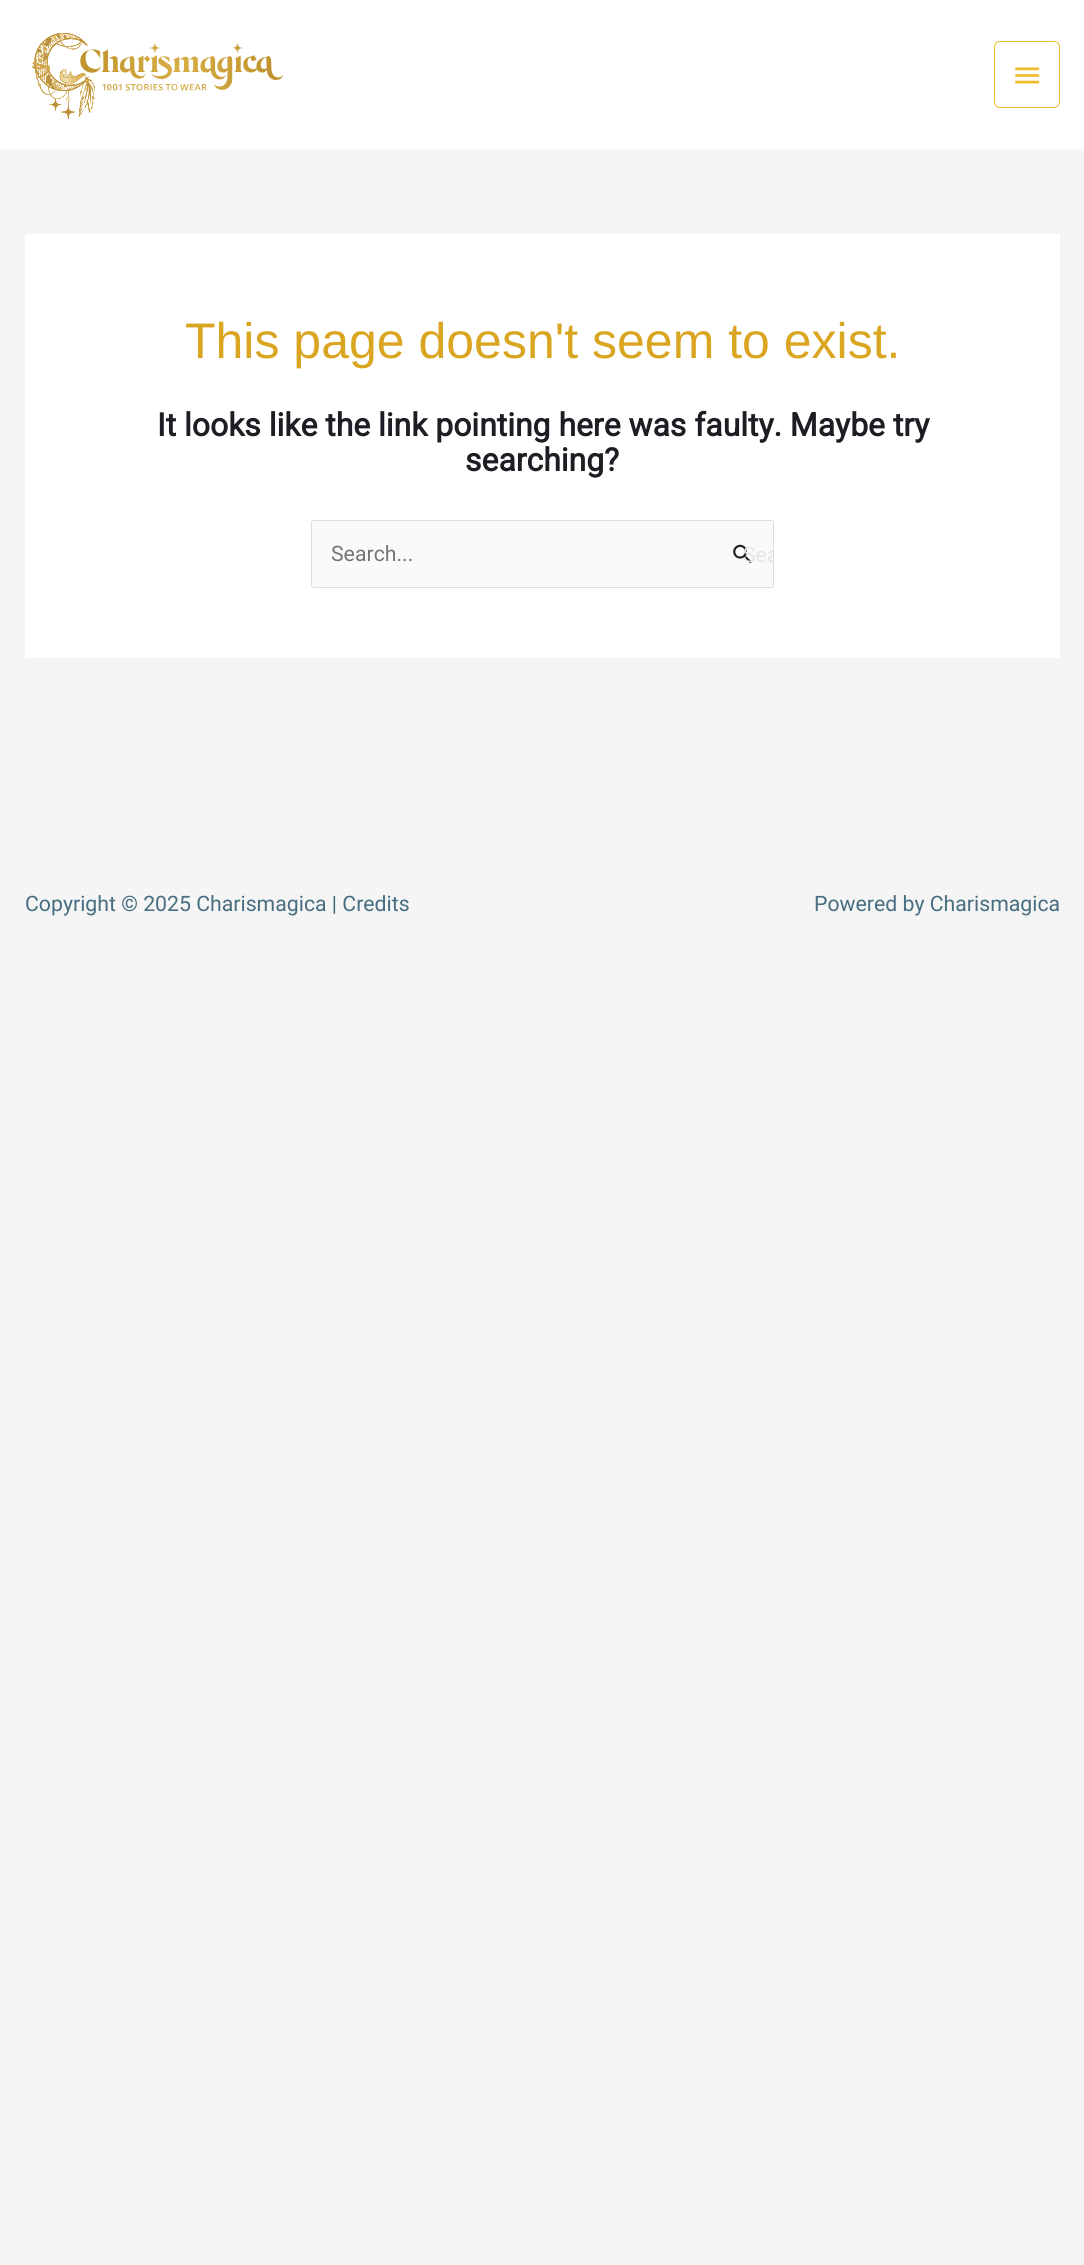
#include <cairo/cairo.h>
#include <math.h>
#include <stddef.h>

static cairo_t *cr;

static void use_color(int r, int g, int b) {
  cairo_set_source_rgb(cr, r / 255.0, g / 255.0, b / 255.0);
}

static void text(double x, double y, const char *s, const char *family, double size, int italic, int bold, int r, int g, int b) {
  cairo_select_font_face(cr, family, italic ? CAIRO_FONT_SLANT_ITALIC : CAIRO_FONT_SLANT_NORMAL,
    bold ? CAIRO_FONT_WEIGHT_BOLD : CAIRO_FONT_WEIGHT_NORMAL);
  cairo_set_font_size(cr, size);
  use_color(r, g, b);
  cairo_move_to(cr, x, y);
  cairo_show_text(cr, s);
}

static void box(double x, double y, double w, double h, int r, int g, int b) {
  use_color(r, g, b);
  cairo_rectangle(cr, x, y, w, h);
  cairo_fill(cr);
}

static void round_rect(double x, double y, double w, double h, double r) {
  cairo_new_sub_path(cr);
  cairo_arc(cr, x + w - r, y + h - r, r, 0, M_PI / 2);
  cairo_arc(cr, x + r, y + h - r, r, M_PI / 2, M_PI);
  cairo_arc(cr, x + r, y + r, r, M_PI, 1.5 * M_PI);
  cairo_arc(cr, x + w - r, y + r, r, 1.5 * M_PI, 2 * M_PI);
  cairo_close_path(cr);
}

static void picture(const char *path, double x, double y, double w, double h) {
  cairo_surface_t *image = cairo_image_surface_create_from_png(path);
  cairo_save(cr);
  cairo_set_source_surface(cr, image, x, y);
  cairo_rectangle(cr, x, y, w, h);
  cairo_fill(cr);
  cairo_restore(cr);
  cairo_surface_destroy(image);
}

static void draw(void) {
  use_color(245, 245, 245);
  cairo_paint(cr);
  box(0, 0, 1084, 149, 255, 255, 255);
  picture("img_01.png", 32, 33, 251, 86);
  round_rect(994.5, 41.5, 65, 66, 5.5);
  use_color(242, 185, 40);
  cairo_set_line_width(cr, 1);
  cairo_stroke(cr);
  picture("img_02.png", 1015, 67, 25, 17);
  box(25, 234, 1035, 424, 255, 255, 255);
  use_color(250, 250, 250);
  round_rect(311.5, 520.5, 462, 67, 2);
  cairo_fill_preserve(cr);
  use_color(221, 221, 221);
  cairo_stroke(cr);
  picture("img_03.png", 733, 544, 19, 20);
  text(185, 358, "This page doesn't seem to exist.", "Liberation Sans", 50, 0, 0, 218, 165, 32);
  text(157, 436, "It looks like the link pointing here was faulty. Maybe try", "Roboto", 31.9, 0, 1, 29, 29, 35);
  text(465, 471, "searching?", "Roboto", 31.9, 0, 1, 29, 29, 35);
  text(331, 561, "Search...", "Roboto", 21.25, 0, 0, 117, 117, 117);
  cairo_save(cr);
  round_rect(718, 520, 56, 71, 2.5);
  cairo_clip(cr);
  text(743, 562, "Sea", "Roboto", 21.25, 0, 0, 228, 228, 228);
  cairo_restore(cr);
  text(25, 911, "Copyright © 2025 Charismagica | Credits", "Roboto", 21.25, 0, 0, 71, 109, 128);
  text(814, 911, "Powered by Charismagica", "Roboto", 21.25, 0, 0, 71, 109, 128);
}

int main(void) {
  cairo_surface_t *surface = cairo_image_surface_create(CAIRO_FORMAT_RGB24, 1084, 2265);
  cr = cairo_create(surface);
  cairo_font_options_t *options = cairo_font_options_create();
  cairo_font_options_set_hint_metrics(options, CAIRO_HINT_METRICS_OFF);
  cairo_font_options_set_hint_style(options, CAIRO_HINT_STYLE_NONE);
  cairo_set_font_options(cr, options);
  cairo_set_miter_limit(cr, 4);
  draw();
  cairo_surface_write_to_png(surface, "out.png");
  cairo_font_options_destroy(options);
  cairo_destroy(cr);
  cairo_surface_destroy(surface);
  return 0;
}
